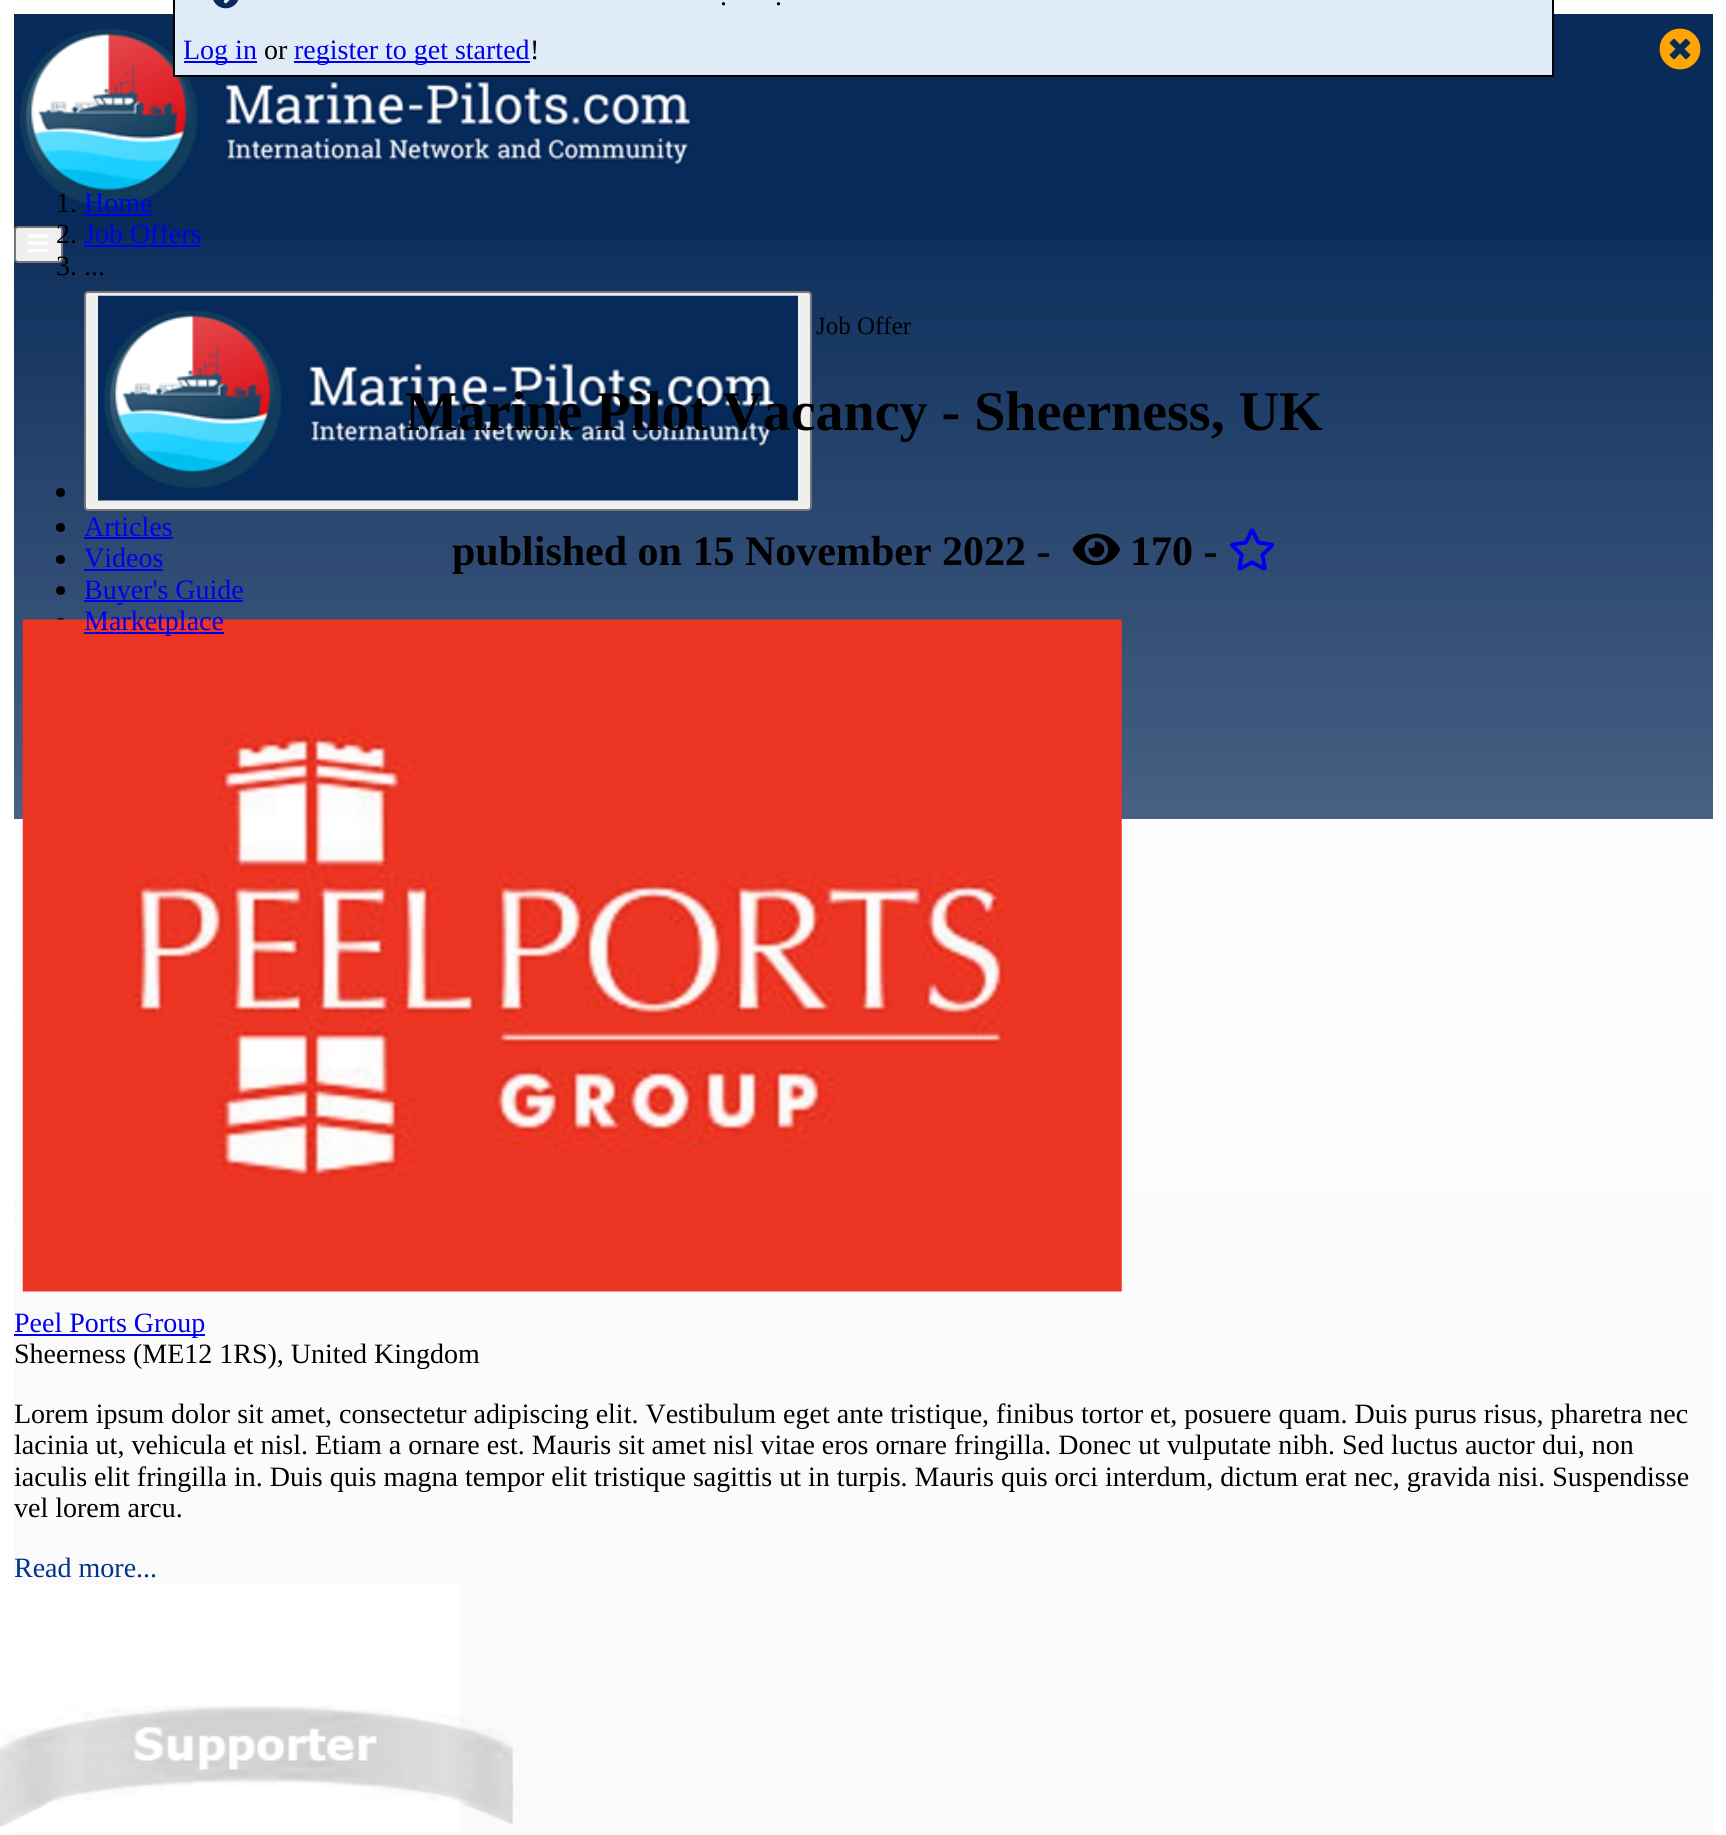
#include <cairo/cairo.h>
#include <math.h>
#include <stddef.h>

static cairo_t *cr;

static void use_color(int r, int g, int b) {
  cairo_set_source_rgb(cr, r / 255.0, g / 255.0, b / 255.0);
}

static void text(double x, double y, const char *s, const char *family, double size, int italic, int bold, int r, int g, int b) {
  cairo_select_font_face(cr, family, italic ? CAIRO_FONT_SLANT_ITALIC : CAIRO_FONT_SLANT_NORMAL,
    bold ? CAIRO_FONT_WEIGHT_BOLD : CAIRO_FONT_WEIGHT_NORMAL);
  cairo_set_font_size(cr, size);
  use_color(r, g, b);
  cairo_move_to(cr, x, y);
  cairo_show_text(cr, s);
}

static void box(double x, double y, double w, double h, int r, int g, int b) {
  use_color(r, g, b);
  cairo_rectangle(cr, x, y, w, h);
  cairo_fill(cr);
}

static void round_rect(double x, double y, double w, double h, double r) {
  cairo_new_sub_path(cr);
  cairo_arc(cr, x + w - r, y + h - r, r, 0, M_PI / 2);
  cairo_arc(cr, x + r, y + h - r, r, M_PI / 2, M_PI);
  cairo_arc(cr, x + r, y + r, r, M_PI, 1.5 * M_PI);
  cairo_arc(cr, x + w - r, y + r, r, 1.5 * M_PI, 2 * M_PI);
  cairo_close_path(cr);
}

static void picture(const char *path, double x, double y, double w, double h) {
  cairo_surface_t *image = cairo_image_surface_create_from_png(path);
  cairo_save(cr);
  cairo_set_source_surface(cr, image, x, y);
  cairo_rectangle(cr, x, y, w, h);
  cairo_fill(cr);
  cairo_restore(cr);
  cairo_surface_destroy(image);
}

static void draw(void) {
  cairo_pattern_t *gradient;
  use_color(255, 255, 255);
  cairo_paint(cr);
  box(14, 14, 1699, 805, 9, 43, 90);
  gradient = cairo_pattern_create_linear(864, 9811, 864, 187);
  cairo_pattern_add_color_stop_rgba(gradient, 0.75, 0.969, 0.969, 0.969, 1);
  cairo_pattern_add_color_stop_rgba(gradient, 1, 0.969, 0.969, 0.969, 0);
  cairo_set_source(cr, gradient);
  cairo_pattern_destroy(gradient);
  cairo_rectangle(cr, 14, 239, 1699, 1596);
  cairo_fill(cr);
  picture("img_06.png", 14, 28, 700, 191);
  use_color(223, 235, 247);
  cairo_rectangle(cr, 174, -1, 1379, 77);
  cairo_fill_preserve(cr);
  use_color(0, 0, 0);
  cairo_stroke(cr);
  picture("img_01.png", 213, 0, 26, 9);
  box(184, 61, 73, 2, 0, 0, 238);
  box(294, 61, 236, 2, 0, 0, 238);
  use_color(0, 0, 0);
  cairo_arc(cr, 60.5, 622.5, 4.5, 0, 2 * M_PI);
  cairo_fill(cr);
  picture("img_02.png", 22, 619, 1100, 673);
  box(14, 1334, 191, 2, 0, 0, 238);
  box(84, 214, 68, 2, 0, 0, 238);
  box(84, 245, 117, 2, 0, 0, 238);
  picture("img_03.png", 1072, 533, 48, 33);
  picture("img_04.png", 1230, 528, 45, 43);
  box(14, 1584, 446, 248, 255, 255, 255);
  picture("img_05.png", 0, 1705, 513, 123);
  use_color(239, 239, 239);
  round_rect(15, 227, 47, 35, 3);
  cairo_fill_preserve(cr);
  use_color(118, 118, 118);
  cairo_stroke(cr);
  picture("img_07.png", 28, 234, 21, 18);
  use_color(0, 0, 0);
  cairo_arc(cr, 60.5, 492.5, 4.5, 0, 2 * M_PI);
  cairo_fill(cr);
  use_color(239, 239, 239);
  round_rect(85, 292, 726, 218, 3);
  cairo_fill_preserve(cr);
  use_color(118, 118, 118);
  cairo_stroke(cr);
  picture("img_08.png", 1659, 28, 42, 42);
  picture("img_09.png", 98, 295, 700, 206);
  use_color(0, 0, 0);
  cairo_arc(cr, 60.5, 527.5, 4.5, 0, 2 * M_PI);
  cairo_fill(cr);
  box(84, 537, 89, 2, 0, 0, 238);
  use_color(0, 0, 0);
  cairo_arc(cr, 60.5, 559.5, 4.5, 0, 2 * M_PI);
  cairo_fill(cr);
  box(84, 569, 79, 2, 0, 0, 238);
  use_color(0, 0, 0);
  cairo_arc(cr, 60.5, 590.5, 4.5, 0, 2 * M_PI);
  cairo_fill(cr);
  box(84, 600, 159, 2, 0, 0, 238);
  box(84, 632, 140, 2, 0, 0, 238);
  text(720, 5, ".", "Liberation Serif", 28, 0, 0, 0, 0, 0);
  text(775, 5, ".", "Liberation Serif", 28, 0, 0, 0, 0, 0);
  text(183, 59, "Log in", "Liberation Serif", 28, 0, 0, 0, 0, 238);
  text(264, 59, "or", "Liberation Serif", 28, 0, 0, 0, 0, 0);
  text(294, 59, "register to get started", "Liberation Serif", 28, 0, 0, 0, 0, 238);
  text(530, 59, "!", "Liberation Serif", 28, 0, 0, 0, 0, 0);
  text(14, 1423, "Lorem ipsum dolor sit amet, consectetur adipiscing elit. Vestibulum eget ante tristique, finibus tortor et, posuere quam. Duis purus risus, pharetra nec", "Liberation Serif", 28, 0, 0, 0, 0, 0);
  text(14, 1454, "lacinia ut, vehicula et nisl. Etiam a ornare est. Mauris sit amet nisl vitae eros ornare fringilla. Donec ut vulputate nibh. Sed luctus auctor dui, non", "Liberation Serif", 28, 0, 0, 0, 0, 0);
  text(14, 1486, "iaculis elit fringilla in. Duis quis magna tempor elit tristique sagittis ut in turpis. Mauris quis orci interdum, dictum erat nec, gravida nisi. Suspendisse", "Liberation Serif", 28, 0, 0, 0, 0, 0);
  text(14, 1517, "vel lorem arcu.", "Liberation Serif", 28, 0, 0, 0, 0, 0);
  text(14, 1332, "Peel Ports Group", "Liberation Serif", 28, 0, 0, 0, 0, 238);
  text(14, 1363, "Sheerness (ME12 1RS), United Kingdom", "Liberation Serif", 28, 0, 0, 0, 0, 0);
  text(56, 212, "1.", "Liberation Serif", 28, 0, 0, 0, 0, 0);
  text(84, 212, "Home", "Liberation Serif", 28, 0, 0, 0, 0, 238);
  text(56, 243, "2.", "Liberation Serif", 28, 0, 0, 0, 0, 0);
  text(84, 243, "Job Offers", "Liberation Serif", 28, 0, 0, 0, 0, 238);
  text(56, 275, "3. ...", "Liberation Serif", 28, 0, 0, 0, 0, 0);
  text(816, 334, "Job Offer", "Liberation Serif", 25, 0, 0, 0, 0, 0);
  text(405, 430, "Marine Pilot Vacancy - Sheerness, UK", "Liberation Serif", 56, 0, 1, 0, 0, 0);
  text(452, 565, "published on 15 November 2022 -", "Liberation Serif", 42, 0, 1, 0, 0, 0);
  text(1130, 565, "170 -", "Liberation Serif", 42, 0, 1, 0, 0, 0);
  text(14, 1577, "Read more...", "Liberation Serif", 28, 0, 0, 0, 50, 142);
  text(84, 536, "Articles", "Liberation Serif", 28, 0, 0, 0, 0, 238);
  text(84, 567, "Videos", "Liberation Serif", 28, 0, 0, 0, 0, 238);
  text(84, 599, "Buyer's Guide", "Liberation Serif", 28, 0, 0, 0, 0, 238);
  text(84, 630, "Marketplace", "Liberation Serif", 28, 0, 0, 0, 0, 238);
}

int main(void) {
  cairo_surface_t *surface = cairo_image_surface_create(CAIRO_FORMAT_RGB24, 1726, 1835);
  cr = cairo_create(surface);
  cairo_font_options_t *options = cairo_font_options_create();
  cairo_font_options_set_hint_metrics(options, CAIRO_HINT_METRICS_OFF);
  cairo_font_options_set_hint_style(options, CAIRO_HINT_STYLE_NONE);
  cairo_set_font_options(cr, options);
  cairo_set_miter_limit(cr, 4);
  draw();
  cairo_surface_write_to_png(surface, "out.png");
  cairo_font_options_destroy(options);
  cairo_destroy(cr);
  cairo_surface_destroy(surface);
  return 0;
}
